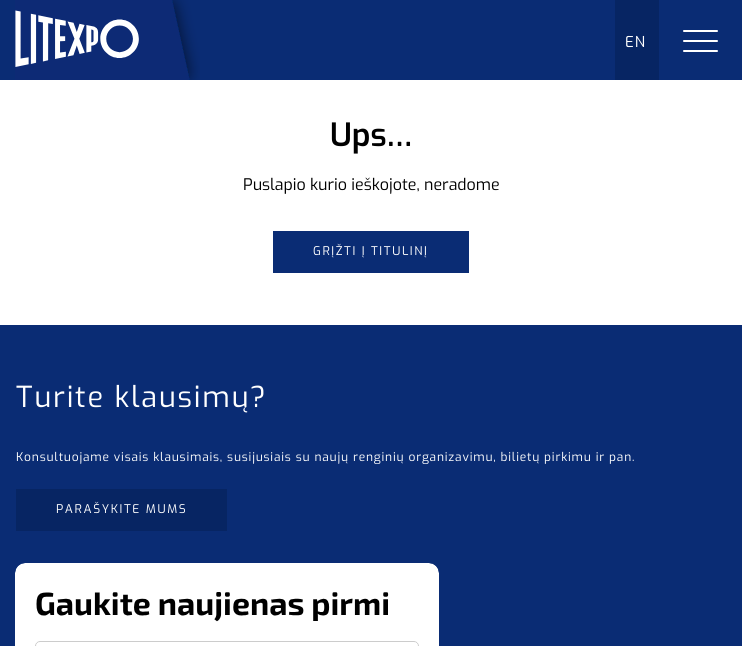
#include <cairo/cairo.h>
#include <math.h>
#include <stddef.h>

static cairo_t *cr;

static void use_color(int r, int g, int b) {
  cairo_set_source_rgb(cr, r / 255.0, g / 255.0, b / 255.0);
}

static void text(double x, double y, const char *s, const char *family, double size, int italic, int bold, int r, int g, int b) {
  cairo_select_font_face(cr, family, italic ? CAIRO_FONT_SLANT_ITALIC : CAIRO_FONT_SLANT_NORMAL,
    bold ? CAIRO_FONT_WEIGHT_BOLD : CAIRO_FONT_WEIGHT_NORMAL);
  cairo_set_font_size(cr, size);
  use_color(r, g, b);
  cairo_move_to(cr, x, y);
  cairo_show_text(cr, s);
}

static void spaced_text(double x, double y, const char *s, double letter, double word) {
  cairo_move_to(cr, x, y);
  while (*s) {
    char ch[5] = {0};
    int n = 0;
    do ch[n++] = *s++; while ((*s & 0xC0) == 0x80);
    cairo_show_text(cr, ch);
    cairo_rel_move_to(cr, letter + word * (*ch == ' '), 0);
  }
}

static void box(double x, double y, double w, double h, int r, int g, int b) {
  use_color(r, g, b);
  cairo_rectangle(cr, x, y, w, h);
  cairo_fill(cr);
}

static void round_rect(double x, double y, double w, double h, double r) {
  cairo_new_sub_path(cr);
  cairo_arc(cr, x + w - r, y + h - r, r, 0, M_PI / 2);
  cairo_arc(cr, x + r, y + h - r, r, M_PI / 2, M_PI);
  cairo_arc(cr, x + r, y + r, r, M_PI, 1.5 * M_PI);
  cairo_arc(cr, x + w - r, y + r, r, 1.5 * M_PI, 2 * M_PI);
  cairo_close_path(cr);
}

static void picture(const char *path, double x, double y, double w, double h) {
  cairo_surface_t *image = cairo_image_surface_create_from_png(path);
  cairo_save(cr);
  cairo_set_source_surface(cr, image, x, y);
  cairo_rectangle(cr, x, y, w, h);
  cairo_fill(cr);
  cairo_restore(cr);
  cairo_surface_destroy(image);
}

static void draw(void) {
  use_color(255, 255, 255);
  cairo_paint(cr);
  box(0, 0, 742, 80, 10, 44, 116);
  picture("img_01.png", 15, 0, 185, 80);
  box(615, 0, 44, 80, 7, 37, 99);
  use_color(255, 255, 255);
  round_rect(683, 30, 35, 2, 1);
  cairo_fill(cr);
  round_rect(683, 40, 35, 2, 1);
  cairo_fill(cr);
  round_rect(683, 50, 35, 2, 1);
  cairo_fill(cr);
  box(273, 231, 196, 42, 10, 44, 116);
  box(0, 325, 742, 321, 10, 44, 116);
  box(16, 489, 211, 42, 7, 37, 99);
  picture("img_02.png", 15, 563, 424, 83);
  cairo_select_font_face(cr, "Exo", CAIRO_FONT_SLANT_NORMAL, CAIRO_FONT_WEIGHT_NORMAL);
  cairo_set_font_size(cr, 15);
  use_color(255, 255, 255);
  spaced_text(625, 47, "EN", 1, 0);
  text(330, 146, "Ups…", "Exo SemiBold", 32, 0, 0, 0, 0, 0);
  text(243, 190, "Puslapio kurio ieškojote, neradome", "Exo", 16, 0, 0, 0, 0, 0);
  cairo_set_font_size(cr, 12);
  use_color(255, 255, 255);
  spaced_text(313, 255, "GRĮŽTI Į TITULINĮ", 1.6, 0);
  cairo_set_font_size(cr, 29);
  spaced_text(16, 407, "Turite klausimų?", 1.75, 0);
  cairo_set_font_size(cr, 12);
  spaced_text(16, 461, "Konsultuojame visais klausimais, susijusiais su naujų renginių organizavimu, bilietų pirkimu ir pan.", 0.8, 0);
  spaced_text(56, 513, "PARAŠYKITE MUMS", 1.6, 0);
}

int main(void) {
  cairo_surface_t *surface = cairo_image_surface_create(CAIRO_FORMAT_RGB24, 742, 646);
  cr = cairo_create(surface);
  cairo_font_options_t *options = cairo_font_options_create();
  cairo_font_options_set_hint_metrics(options, CAIRO_HINT_METRICS_OFF);
  cairo_font_options_set_hint_style(options, CAIRO_HINT_STYLE_NONE);
  cairo_set_font_options(cr, options);
  cairo_set_miter_limit(cr, 4);
  draw();
  cairo_surface_write_to_png(surface, "out.png");
  cairo_font_options_destroy(options);
  cairo_destroy(cr);
  cairo_surface_destroy(surface);
  return 0;
}
